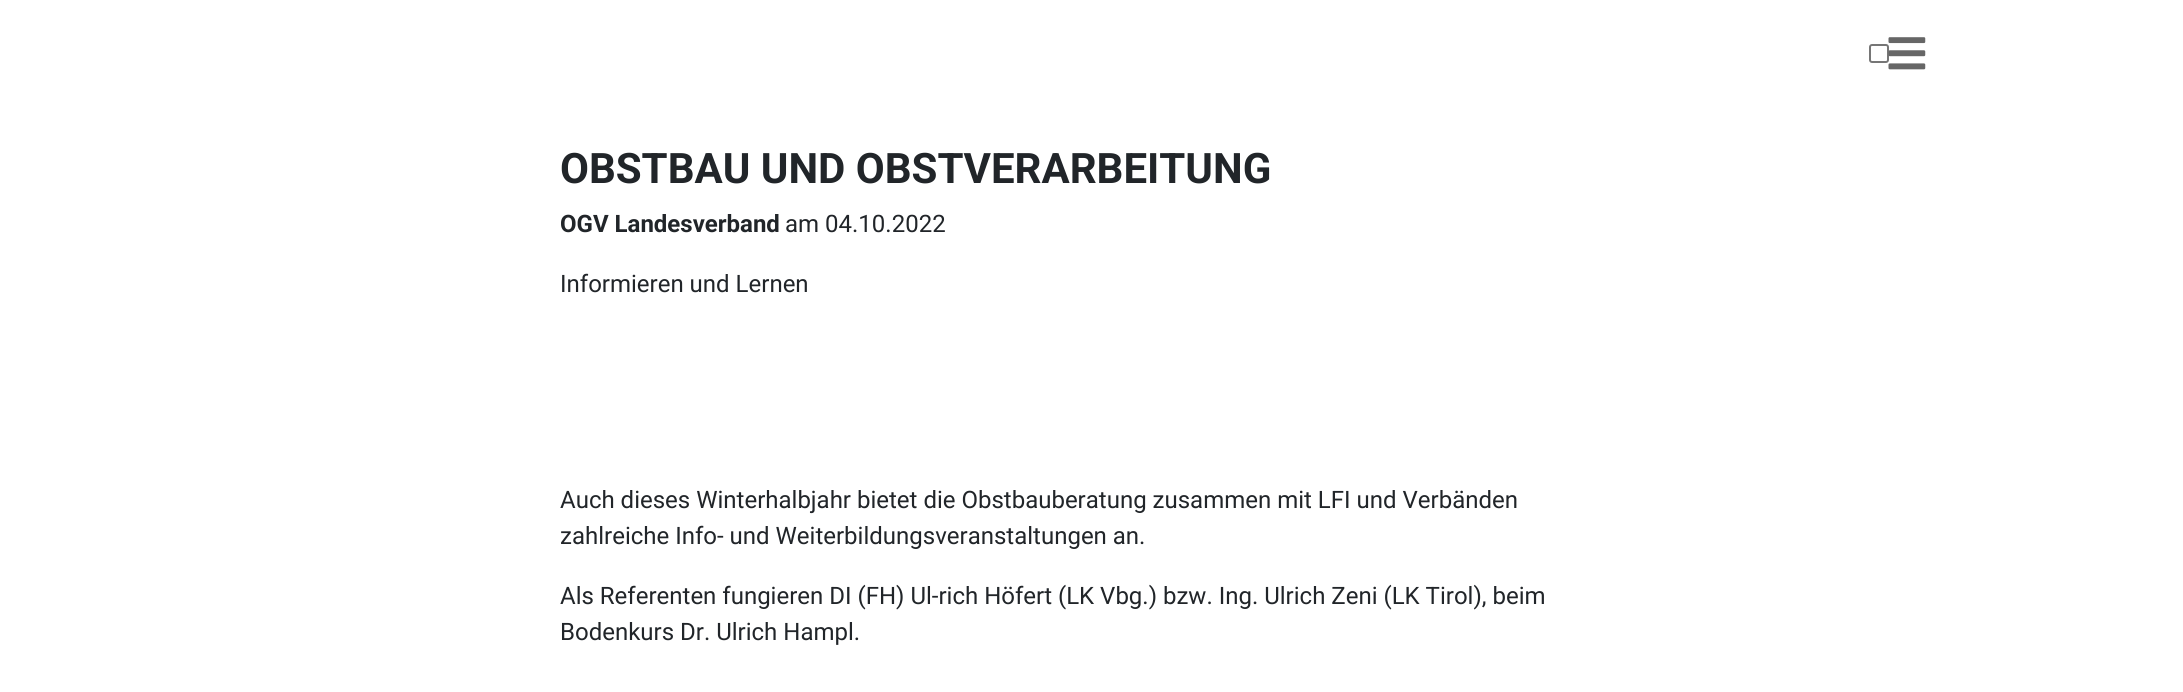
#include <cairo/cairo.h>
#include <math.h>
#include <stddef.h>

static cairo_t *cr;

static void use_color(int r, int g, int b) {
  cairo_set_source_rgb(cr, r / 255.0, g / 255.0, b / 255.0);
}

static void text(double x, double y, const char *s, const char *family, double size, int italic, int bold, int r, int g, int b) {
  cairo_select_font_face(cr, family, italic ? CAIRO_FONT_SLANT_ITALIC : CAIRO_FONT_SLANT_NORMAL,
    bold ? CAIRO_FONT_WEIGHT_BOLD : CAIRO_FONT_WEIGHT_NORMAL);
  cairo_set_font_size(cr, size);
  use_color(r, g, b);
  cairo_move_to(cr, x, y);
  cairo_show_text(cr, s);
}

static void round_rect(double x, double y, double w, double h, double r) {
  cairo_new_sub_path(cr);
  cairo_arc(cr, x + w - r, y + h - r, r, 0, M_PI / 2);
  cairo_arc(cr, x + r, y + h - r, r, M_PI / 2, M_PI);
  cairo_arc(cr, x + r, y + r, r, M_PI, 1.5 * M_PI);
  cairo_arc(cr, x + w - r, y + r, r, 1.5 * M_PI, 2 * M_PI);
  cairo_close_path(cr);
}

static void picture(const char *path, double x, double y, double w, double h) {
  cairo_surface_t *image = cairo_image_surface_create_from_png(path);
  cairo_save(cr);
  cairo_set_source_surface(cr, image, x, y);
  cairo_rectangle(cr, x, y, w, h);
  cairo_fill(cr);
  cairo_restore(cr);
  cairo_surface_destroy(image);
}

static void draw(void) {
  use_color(255, 255, 255);
  cairo_paint(cr);
  round_rect(1870, 45, 18, 17, 2);
  use_color(118, 118, 118);
  cairo_stroke(cr);
  picture("img_01.png", 1888, 37, 38, 33);
  text(560, 183, "OBSTBAU UND OBSTVERARBEITUNG", "Roboto", 42, 0, 1, 33, 37, 41);
  text(560, 232, "OGV Landesverband", "Roboto", 24, 0, 1, 33, 37, 41);
  text(785, 232, "am 04.10.2022", "Roboto", 24, 0, 0, 33, 37, 41);
  text(560, 292, "Informieren und Lernen", "Roboto", 24, 0, 0, 33, 37, 41);
  text(560, 508, "Auch dieses Winterhalbjahr bietet die Obstbauberatung zusammen mit LFI und Verbänden", "Roboto", 24, 0, 0, 33, 37, 41);
  text(560, 544, "zahlreiche Info- und Weiterbildungsveranstaltungen an.", "Roboto", 24, 0, 0, 33, 37, 41);
  text(560, 604, "Als Referenten fungieren DI (FH) Ul-rich Höfert (LK Vbg.) bzw. Ing. Ulrich Zeni (LK Tirol), beim", "Roboto", 24, 0, 0, 33, 37, 41);
  text(560, 640, "Bodenkurs Dr. Ulrich Hampl.", "Roboto", 24, 0, 0, 33, 37, 41);
}

int main(void) {
  cairo_surface_t *surface = cairo_image_surface_create(CAIRO_FORMAT_RGB24, 2183, 692);
  cr = cairo_create(surface);
  cairo_font_options_t *options = cairo_font_options_create();
  cairo_font_options_set_hint_metrics(options, CAIRO_HINT_METRICS_OFF);
  cairo_font_options_set_hint_style(options, CAIRO_HINT_STYLE_NONE);
  cairo_set_font_options(cr, options);
  cairo_set_miter_limit(cr, 4);
  draw();
  cairo_surface_write_to_png(surface, "out.png");
  cairo_font_options_destroy(options);
  cairo_destroy(cr);
  cairo_surface_destroy(surface);
  return 0;
}
